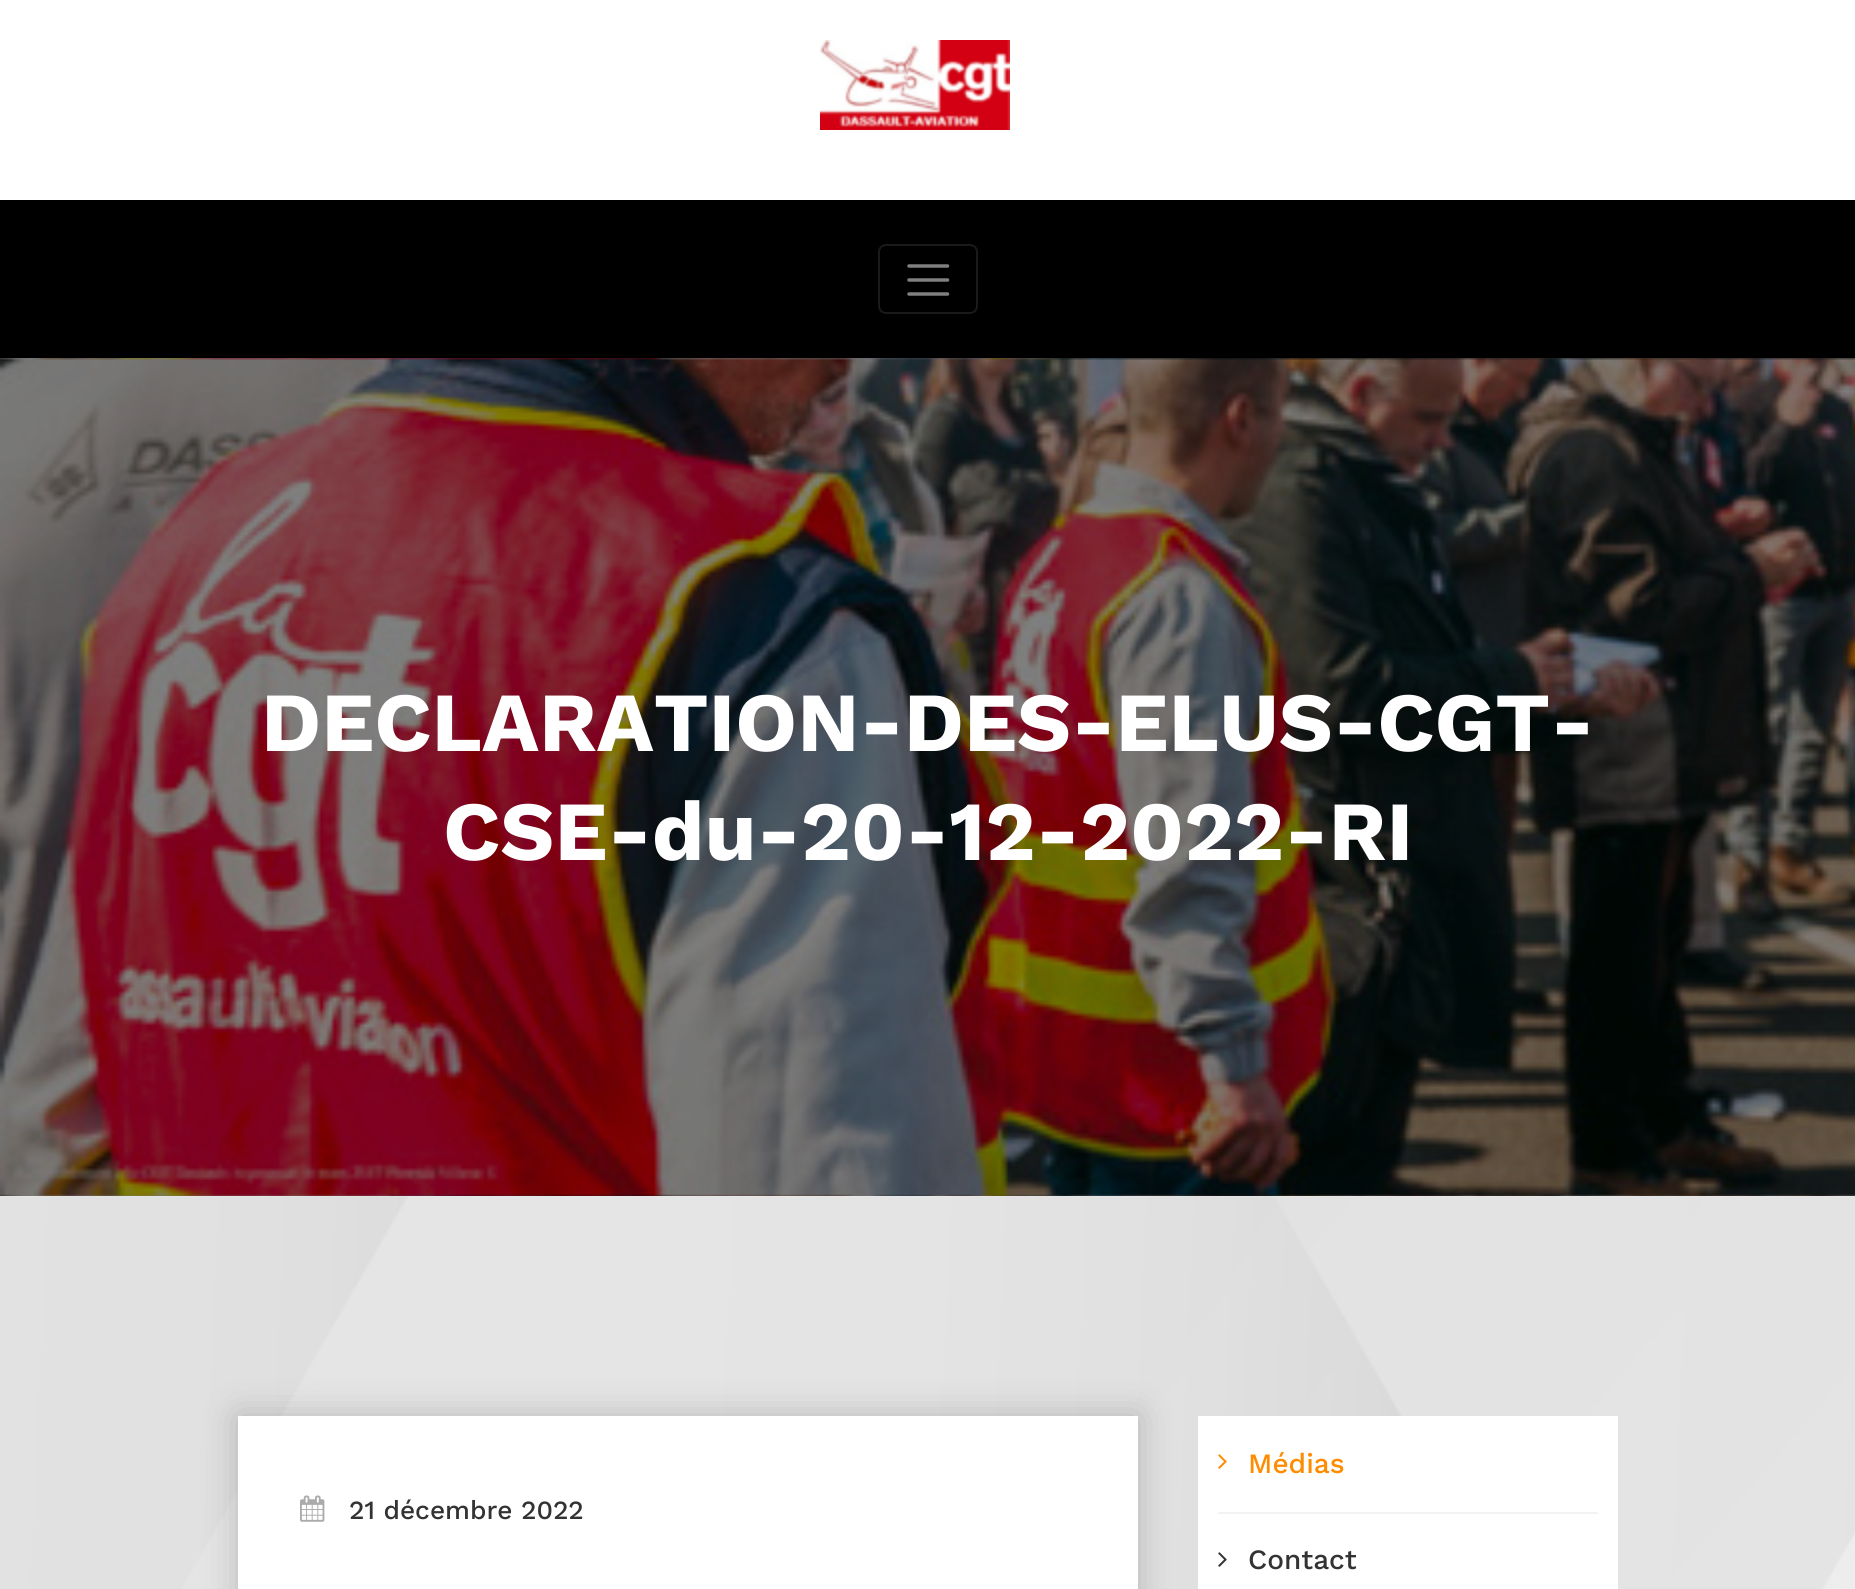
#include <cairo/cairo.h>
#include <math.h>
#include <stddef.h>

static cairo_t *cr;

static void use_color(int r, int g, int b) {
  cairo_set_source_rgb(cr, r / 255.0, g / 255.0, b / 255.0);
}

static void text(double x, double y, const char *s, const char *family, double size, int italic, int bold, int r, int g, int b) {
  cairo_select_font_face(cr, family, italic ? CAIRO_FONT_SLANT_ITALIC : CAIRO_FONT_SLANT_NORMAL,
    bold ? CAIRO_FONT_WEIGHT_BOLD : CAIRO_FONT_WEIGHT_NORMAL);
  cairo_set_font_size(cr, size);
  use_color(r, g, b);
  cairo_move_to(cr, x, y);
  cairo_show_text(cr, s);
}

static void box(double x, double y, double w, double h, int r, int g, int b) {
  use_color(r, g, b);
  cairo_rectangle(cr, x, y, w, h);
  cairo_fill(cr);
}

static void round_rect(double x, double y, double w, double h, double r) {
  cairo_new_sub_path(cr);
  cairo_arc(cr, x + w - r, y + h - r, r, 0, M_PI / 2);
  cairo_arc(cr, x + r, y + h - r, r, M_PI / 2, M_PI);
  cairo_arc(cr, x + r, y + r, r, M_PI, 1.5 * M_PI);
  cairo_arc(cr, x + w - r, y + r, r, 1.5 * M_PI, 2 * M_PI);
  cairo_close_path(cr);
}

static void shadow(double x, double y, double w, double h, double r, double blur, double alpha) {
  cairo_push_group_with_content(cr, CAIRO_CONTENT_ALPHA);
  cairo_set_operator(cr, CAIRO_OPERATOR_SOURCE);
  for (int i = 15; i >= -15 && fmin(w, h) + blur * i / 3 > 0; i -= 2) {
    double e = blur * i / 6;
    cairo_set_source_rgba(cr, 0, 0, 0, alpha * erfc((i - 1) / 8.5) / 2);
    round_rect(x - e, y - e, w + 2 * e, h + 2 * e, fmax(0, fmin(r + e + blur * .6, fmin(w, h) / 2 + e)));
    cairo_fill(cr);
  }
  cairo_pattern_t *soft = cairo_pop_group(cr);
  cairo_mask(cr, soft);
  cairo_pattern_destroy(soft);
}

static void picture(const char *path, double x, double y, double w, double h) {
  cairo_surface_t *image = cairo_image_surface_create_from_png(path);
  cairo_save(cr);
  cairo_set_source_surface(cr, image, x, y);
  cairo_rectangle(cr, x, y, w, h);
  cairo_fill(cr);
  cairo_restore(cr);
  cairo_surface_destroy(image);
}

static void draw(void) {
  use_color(255, 255, 255);
  cairo_paint(cr);
  picture("img_01.png", 820, 40, 190, 90);
  box(0, 200, 1855, 158, 0, 0, 0);
  round_rect(879, 245, 98, 68, 7);
  use_color(26, 26, 26);
  cairo_stroke(cr);
  cairo_new_path(cr);
  cairo_move_to(cr, 909, 266);
  cairo_line_to(cr, 947.5, 266);
  cairo_move_to(cr, 909, 280);
  cairo_line_to(cr, 947.5, 280);
  cairo_move_to(cr, 909, 294);
  cairo_line_to(cr, 947.5, 294);
  use_color(128, 128, 128);
  cairo_set_line_width(cr, 3.5);
  cairo_set_line_cap(cr, CAIRO_LINE_CAP_ROUND);
  cairo_stroke(cr);
  picture("img_02.png", 0, 358, 1855, 838);
  picture("img_03.png", 0, 1196, 1855, 393);
  box(238, 1416, 900, 173, 255, 255, 255);
  cairo_save(cr);
  cairo_set_fill_rule(cr, CAIRO_FILL_RULE_EVEN_ODD);
  cairo_new_path(cr);
  cairo_move_to(cr, 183, 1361);
  cairo_line_to(cr, 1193, 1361);
  cairo_line_to(cr, 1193, 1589);
  cairo_line_to(cr, 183, 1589);
  cairo_close_path(cr);
  cairo_move_to(cr, 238, 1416);
  cairo_line_to(cr, 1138, 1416);
  cairo_line_to(cr, 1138, 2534);
  cairo_line_to(cr, 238, 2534);
  cairo_close_path(cr);
  cairo_clip(cr);
  use_color(0, 0, 0);
  shadow(238, 1416, 900, 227, 0, 18, 0.2);
  cairo_restore(cr);
  picture("img_04.png", 300, 1495, 25, 27);
  box(1198, 1416, 420, 173, 255, 255, 255);
  box(1218, 1512, 380, 2, 243, 243, 243);
  picture("img_05.png", 1218, 1454, 9, 15);
  picture("img_06.png", 1218, 1552, 9, 15);
  text(261, 751, "DECLARATION-DES-ELUS-CGT-", "Work Sans", 84, 0, 1, 255, 255, 255);
  text(443, 860, "CSE-du-20-12-2022-RI", "Work Sans", 84, 0, 1, 255, 255, 255);
  text(349, 1519, "21 décembre 2022", "Work Sans Medium", 26.25, 0, 0, 51, 51, 51);
  text(1248, 1473, "Médias", "Work Sans Medium", 28, 0, 0, 255, 140, 0);
  text(1248, 1569, "Contact", "Work Sans Medium", 28, 0, 0, 51, 51, 51);
}

int main(void) {
  cairo_surface_t *surface = cairo_image_surface_create(CAIRO_FORMAT_RGB24, 1855, 1589);
  cr = cairo_create(surface);
  cairo_font_options_t *options = cairo_font_options_create();
  cairo_font_options_set_hint_metrics(options, CAIRO_HINT_METRICS_OFF);
  cairo_font_options_set_hint_style(options, CAIRO_HINT_STYLE_NONE);
  cairo_set_font_options(cr, options);
  cairo_set_miter_limit(cr, 4);
  draw();
  cairo_surface_write_to_png(surface, "out.png");
  cairo_font_options_destroy(options);
  cairo_destroy(cr);
  cairo_surface_destroy(surface);
  return 0;
}
